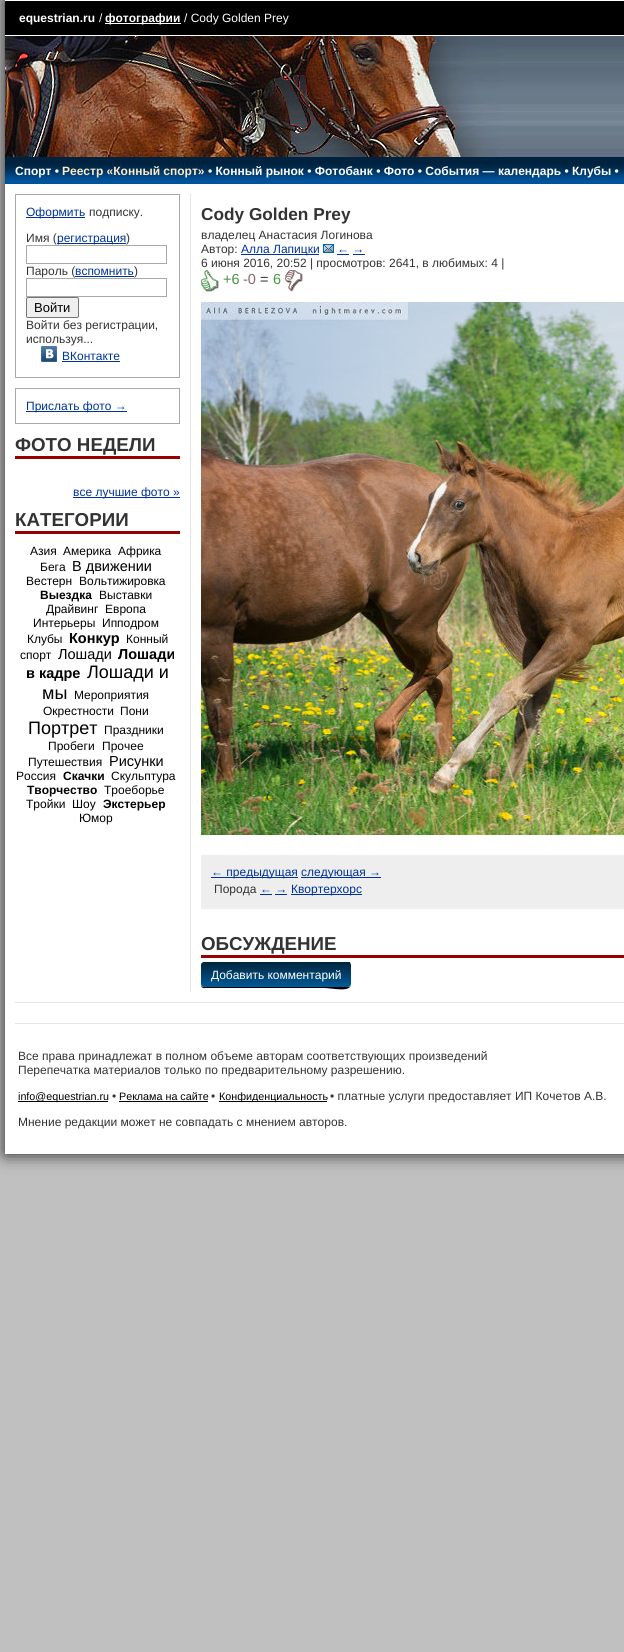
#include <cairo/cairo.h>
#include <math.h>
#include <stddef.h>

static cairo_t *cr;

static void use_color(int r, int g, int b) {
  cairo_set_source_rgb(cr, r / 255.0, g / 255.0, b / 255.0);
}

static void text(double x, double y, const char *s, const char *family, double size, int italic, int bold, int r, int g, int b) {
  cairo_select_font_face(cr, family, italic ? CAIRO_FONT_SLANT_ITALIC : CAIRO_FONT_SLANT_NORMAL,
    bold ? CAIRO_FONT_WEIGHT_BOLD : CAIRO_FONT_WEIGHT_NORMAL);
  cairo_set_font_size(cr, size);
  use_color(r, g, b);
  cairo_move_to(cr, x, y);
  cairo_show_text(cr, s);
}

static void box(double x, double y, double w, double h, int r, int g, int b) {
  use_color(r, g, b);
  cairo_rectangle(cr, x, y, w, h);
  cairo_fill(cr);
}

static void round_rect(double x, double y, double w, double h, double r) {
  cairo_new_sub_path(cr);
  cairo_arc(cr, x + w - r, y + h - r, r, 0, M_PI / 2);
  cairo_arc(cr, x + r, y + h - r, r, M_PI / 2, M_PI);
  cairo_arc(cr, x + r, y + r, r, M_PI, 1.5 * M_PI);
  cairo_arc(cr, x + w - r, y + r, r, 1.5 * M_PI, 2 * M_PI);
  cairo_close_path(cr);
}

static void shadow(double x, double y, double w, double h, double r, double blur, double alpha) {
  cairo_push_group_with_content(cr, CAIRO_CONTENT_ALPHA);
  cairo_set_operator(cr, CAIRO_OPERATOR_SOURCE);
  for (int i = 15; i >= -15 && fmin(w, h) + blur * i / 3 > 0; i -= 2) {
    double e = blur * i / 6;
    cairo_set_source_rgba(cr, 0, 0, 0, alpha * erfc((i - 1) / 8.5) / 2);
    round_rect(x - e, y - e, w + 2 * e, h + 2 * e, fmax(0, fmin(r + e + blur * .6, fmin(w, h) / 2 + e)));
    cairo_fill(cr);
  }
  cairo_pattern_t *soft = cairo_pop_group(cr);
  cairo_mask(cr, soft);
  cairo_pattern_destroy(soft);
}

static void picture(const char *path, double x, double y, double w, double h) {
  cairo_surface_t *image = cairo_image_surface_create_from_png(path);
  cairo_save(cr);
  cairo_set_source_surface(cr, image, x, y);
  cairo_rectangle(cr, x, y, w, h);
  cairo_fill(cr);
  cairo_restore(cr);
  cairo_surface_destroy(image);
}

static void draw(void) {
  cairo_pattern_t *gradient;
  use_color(192, 192, 192);
  cairo_paint(cr);
  use_color(33, 33, 33);
  shadow(5, 0, 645, 1154, 0, 8.5, 1);
  box(5, 1, 619, 34, 0, 0, 0);
  box(5, 0, 619, 1, 255, 255, 255);
  box(5, 35, 619, 1, 255, 255, 255);
  box(105, 23, 76, 1, 255, 255, 255);
  picture("img_01.png", 499, 36, 125, 121);
  picture("img_02.png", 5, 36, 494, 121);
  picture("img_03.png", 5, 157, 619, 27);
  box(5, 184, 619, 970, 255, 255, 255);
  box(190, 194, 1, 798, 229, 229, 229);
  cairo_rectangle(cr, 15.5, 194.5, 164, 183);
  use_color(169, 169, 169);
  cairo_set_line_width(cr, 1);
  cairo_stroke(cr);
  box(26, 217, 59, 1, 0, 51, 153);
  box(57, 243, 69, 1, 0, 51, 153);
  cairo_rectangle(cr, 26.5, 245.5, 140, 18);
  use_color(169, 169, 169);
  cairo_stroke(cr);
  cairo_rectangle(cr, 26.5, 278.5, 140, 18);
  cairo_stroke(cr);
  use_color(239, 239, 239);
  round_rect(26.5, 297.5, 52, 20, 1.5);
  cairo_fill_preserve(cr);
  use_color(118, 118, 118);
  cairo_stroke(cr);
  picture("img_04.png", 41, 346, 16, 16);
  box(62, 361, 58, 1, 0, 51, 153);
  cairo_rectangle(cr, 15.5, 388.5, 164, 35);
  use_color(169, 169, 169);
  cairo_stroke(cr);
  box(26, 411, 101, 1, 0, 51, 153);
  box(15, 456, 165, 3, 153, 0, 0);
  box(73, 497, 107, 1, 0, 51, 153);
  box(15, 531, 165, 3, 153, 0, 0);
  box(241, 254, 78, 1, 0, 51, 153);
  picture("img_05.png", 323, 244, 11, 9);
  box(337, 254, 12, 1, 0, 51, 153);
  box(353, 254, 12, 1, 0, 51, 153);
  picture("img_06.png", 201, 270, 18, 22);
  picture("img_07.png", 285, 270, 18, 22);
  picture("img_08.png", 201, 302, 423, 533);
  box(201, 855, 423, 54, 238, 238, 238);
  box(211, 877, 87, 1, 0, 51, 153);
  box(301, 877, 80, 1, 0, 51, 153);
  box(260, 894, 12, 1, 0, 51, 153);
  box(275, 894, 12, 1, 0, 51, 153);
  box(291, 894, 71, 1, 0, 51, 153);
  box(201, 955, 423, 3, 153, 0, 0);
  use_color(0, 0, 0);
  cairo_new_path(cr);
  cairo_move_to(cr, 201, 984);
  cairo_curve_to(cr, 201, 986, 201, 987, 203, 988);
  cairo_line_to(cr, 324, 988);
  cairo_curve_to(cr, 332, 988, 351, 993, 351, 984);
  cairo_curve_to(cr, 351, 986, 350, 987, 348, 987);
  cairo_line_to(cr, 204, 987);
  cairo_curve_to(cr, 202, 987, 201, 986, 201, 984);
  cairo_close_path(cr);
  cairo_fill(cr);
  cairo_save(cr);
  round_rect(201, 962, 150, 25, 3);
  cairo_clip(cr);
  gradient = cairo_pattern_create_linear(276, 939, 276, 963);
  cairo_pattern_add_color_stop_rgba(gradient, 0, 0, 0.149, 0.243, 1);
  cairo_pattern_add_color_stop_rgba(gradient, 1, 0, 0.353, 0.604, 1);
  cairo_set_source(cr, gradient);
  cairo_pattern_destroy(gradient);
  cairo_rectangle(cr, 201, 962, 150, 1);
  cairo_fill(cr);
  gradient = cairo_pattern_create_linear(276, 963, 276, 987);
  cairo_pattern_add_color_stop_rgba(gradient, 0, 0, 0.149, 0.243, 1);
  cairo_pattern_add_color_stop_rgba(gradient, 1, 0, 0.353, 0.604, 1);
  cairo_set_source(cr, gradient);
  cairo_pattern_destroy(gradient);
  cairo_new_path(cr);
  cairo_move_to(cr, 201, 963);
  cairo_line_to(cr, 351, 963);
  cairo_line_to(cr, 351, 984);
  cairo_curve_to(cr, 351, 985.5, 349.5, 987, 348, 987);
  cairo_line_to(cr, 204, 987);
  cairo_curve_to(cr, 202.5, 987, 201, 985.5, 201, 984);
  cairo_close_path(cr);
  cairo_fill(cr);
  cairo_restore(cr);
  box(203, 962, 147, 1, 0, 38, 62);
  box(15, 1002, 609, 1, 229, 229, 229);
  box(15, 1023, 609, 1, 229, 229, 229);
  box(18, 1101, 90, 1, 0, 0, 0);
  box(119, 1101, 89, 1, 0, 0, 0);
  box(219, 1101, 108, 1, 0, 0, 0);
  text(19, 22, "equestrian.ru", "Liberation Sans", 12, 0, 1, 255, 255, 255);
  text(99, 22, "/", "Liberation Sans", 12, 0, 0, 255, 255, 255);
  text(105, 22, "фотографии", "Liberation Sans", 12, 0, 1, 255, 255, 255);
  text(184, 22, "/ Cody Golden Prey", "Liberation Sans", 12, 0, 0, 255, 255, 255);
  text(15, 175, "Спорт •", "Liberation Sans", 12, 0, 1, 255, 255, 255);
  text(62, 175, "Реестр «Конный спорт»", "Liberation Sans", 12, 0, 1, 254, 234, 199);
  text(208, 175, "• Конный рынок • Фотобанк • Фото • События — календарь • Клубы •", "Liberation Sans", 12, 0, 1, 255, 255, 255);
  text(26, 216, "Оформить", "Liberation Sans", 12, 0, 0, 0, 51, 153);
  text(89, 216, "подписку.", "Liberation Sans", 12, 0, 0, 51, 51, 51);
  text(26, 242, "Имя (", "Liberation Sans", 12, 0, 0, 51, 51, 51);
  text(57, 242, "регистрация", "Liberation Sans", 12, 0, 0, 0, 51, 153);
  text(126, 242, ")", "Liberation Sans", 12, 0, 0, 51, 51, 51);
  text(26, 275, "Пароль (", "Liberation Sans", 12, 0, 0, 51, 51, 51);
  text(75, 275, "вспомнить", "Liberation Sans", 12, 0, 0, 0, 51, 153);
  box(75, 276, 59, 1, 0, 51, 153);
  text(134, 275, ")", "Liberation Sans", 12, 0, 0, 51, 51, 51);
  text(34, 312, "Войти", "Liberation Sans", 13, 0, 0, 0, 0, 0);
  text(26, 329, "Войти без регистрации,", "Liberation Sans", 12, 0, 0, 51, 51, 51);
  text(26, 343, "используя...", "Liberation Sans", 12, 0, 0, 51, 51, 51);
  text(62, 360, "ВКонтакте", "Liberation Sans", 12, 0, 0, 0, 51, 153);
  text(26, 410, "Прислать фото →", "Liberation Sans", 12, 0, 0, 0, 51, 153);
  text(15, 451, "ФОТО НЕДЕЛИ", "Liberation Sans", 18.75, 0, 1, 51, 51, 51);
  text(73, 496, "все лучшие фото »", "Liberation Sans", 12, 0, 0, 0, 51, 153);
  text(15, 526, "КАТЕГОРИИ", "Liberation Sans", 18.75, 0, 1, 51, 51, 51);
  text(30, 555, "Азия", "Liberation Sans", 12, 0, 0, 0, 0, 0);
  text(63, 555, "Америка", "Liberation Sans", 12, 0, 0, 0, 0, 0);
  text(118, 555, "Африка", "Liberation Sans", 12, 0, 0, 0, 0, 0);
  text(40, 571, "Бега", "Liberation Sans", 12, 0, 0, 0, 0, 0);
  text(72, 571, "В движении", "Liberation Sans", 14.5, 0, 0, 0, 0, 0);
  text(26, 585, "Вестерн", "Liberation Sans", 12, 0, 0, 0, 0, 0);
  text(79, 585, "Вольтижировка", "Liberation Sans", 12, 0, 0, 0, 0, 0);
  text(40, 599, "Выездка", "Liberation Sans", 12, 0, 1, 0, 0, 0);
  text(99, 599, "Выставки", "Liberation Sans", 12, 0, 0, 0, 0, 0);
  text(46, 613, "Драйвинг", "Liberation Sans", 12, 0, 0, 0, 0, 0);
  text(105, 613, "Европа", "Liberation Sans", 12, 0, 0, 0, 0, 0);
  text(33, 627, "Интерьеры", "Liberation Sans", 12, 0, 0, 0, 0, 0);
  text(102, 627, "Ипподром", "Liberation Sans", 12, 0, 0, 0, 0, 0);
  text(27, 643, "Клубы", "Liberation Sans", 12, 0, 0, 0, 0, 0);
  text(69, 643, "Конкур", "Liberation Sans", 14.5, 0, 1, 0, 0, 0);
  text(126, 643, "Конный", "Liberation Sans", 12, 0, 0, 0, 0, 0);
  text(20, 659, "спорт", "Liberation Sans", 12, 0, 0, 0, 0, 0);
  text(58, 659, "Лошади", "Liberation Sans", 14.5, 0, 0, 0, 0, 0);
  text(118, 659, "Лошади", "Liberation Sans", 14.5, 0, 1, 0, 0, 0);
  text(26, 678, "в кадре", "Liberation Sans", 14.5, 0, 1, 0, 0, 0);
  text(87, 678, "Лошади и", "Liberation Sans", 18, 0, 0, 0, 0, 0);
  text(42, 699, "мы", "Liberation Sans", 18, 0, 0, 0, 0, 0);
  text(74, 699, "Мероприятия", "Liberation Sans", 12, 0, 0, 0, 0, 0);
  text(43, 715, "Окрестности", "Liberation Sans", 12, 0, 0, 0, 0, 0);
  text(120, 715, "Пони", "Liberation Sans", 12, 0, 0, 0, 0, 0);
  text(28, 734, "Портрет", "Liberation Sans", 18, 0, 0, 0, 0, 0);
  text(104, 734, "Праздники", "Liberation Sans", 12, 0, 0, 0, 0, 0);
  text(48, 750, "Пробеги", "Liberation Sans", 12, 0, 0, 0, 0, 0);
  text(102, 750, "Прочее", "Liberation Sans", 12, 0, 0, 0, 0, 0);
  text(28, 766, "Путешествия", "Liberation Sans", 12, 0, 0, 0, 0, 0);
  text(109, 766, "Рисунки", "Liberation Sans", 14.5, 0, 0, 0, 0, 0);
  text(16, 780, "Россия", "Liberation Sans", 12, 0, 0, 0, 0, 0);
  text(63, 780, "Скачки", "Liberation Sans", 12, 0, 1, 0, 0, 0);
  text(111, 780, "Скульптура", "Liberation Sans", 12, 0, 0, 0, 0, 0);
  text(27, 794, "Творчество", "Liberation Sans", 12, 0, 1, 0, 0, 0);
  text(104, 794, "Троеборье", "Liberation Sans", 12, 0, 0, 0, 0, 0);
  text(26, 808, "Тройки", "Liberation Sans", 12, 0, 0, 0, 0, 0);
  text(72, 808, "Шоу", "Liberation Sans", 12, 0, 0, 0, 0, 0);
  text(103, 808, "Экстерьер", "Liberation Sans", 12, 0, 1, 0, 0, 0);
  text(79, 822, "Юмор", "Liberation Sans", 12, 0, 0, 0, 0, 0);
  text(201, 220, "Cody Golden Prey", "Liberation Sans", 17.25, 0, 1, 51, 51, 51);
  text(201, 239, "владелец Анастасия Логинова", "Liberation Sans", 12, 0, 0, 51, 51, 51);
  text(201, 253, "Автор:", "Liberation Sans", 12, 0, 0, 51, 51, 51);
  text(241, 253, "Алла Лапицки", "Liberation Sans", 12, 0, 0, 0, 51, 153);
  text(337, 253, "← →", "Liberation Sans", 12, 0, 0, 0, 51, 153);
  text(201, 267, "6 июня 2016, 20:52 | просмотров: 2641, в любимых: 4 |", "Liberation Sans", 12, 0, 0, 51, 51, 51);
  text(223, 284, "+6", "Liberation Sans", 14.5, 0, 0, 71, 149, 68);
  text(243, 284, "-0", "Liberation Sans", 14.5, 0, 0, 138, 103, 103);
  text(260, 284, "=", "Liberation Sans", 14.5, 0, 0, 51, 51, 51);
  text(273, 284, "6", "Liberation Sans", 14.5, 0, 0, 71, 149, 68);
  text(211, 876, "← предыдущая", "Liberation Sans", 12, 0, 0, 0, 51, 153);
  text(301, 876, "следующая →", "Liberation Sans", 12, 0, 0, 0, 51, 153);
  text(214, 893, "Порода", "Liberation Sans", 12, 0, 0, 51, 51, 51);
  text(260, 893, "← →", "Liberation Sans", 12, 0, 0, 0, 51, 153);
  text(291, 893, "Квортерхорс", "Liberation Sans", 12, 0, 0, 0, 51, 153);
  text(201, 950, "ОБСУЖДЕНИЕ", "Liberation Sans", 18.75, 0, 1, 51, 51, 51);
  text(211, 979, "Добавить комментарий", "Liberation Sans", 12, 0, 0, 255, 255, 255);
  text(18, 1060, "Все права принадлежат в полном объеме авторам соответствующих произведений", "Liberation Sans", 12, 0, 0, 51, 51, 51);
  text(18, 1074, "Перепечатка материалов только по предварительному разрешению.", "Liberation Sans", 12, 0, 0, 51, 51, 51);
  text(18, 1100, "info@equestrian.ru", "Liberation Sans", 10.75, 0, 0, 0, 0, 0);
  text(112, 1100, "•", "Liberation Sans", 12, 0, 0, 51, 51, 51);
  text(119, 1100, "Реклама на сайте", "Liberation Sans", 10.75, 0, 0, 0, 0, 0);
  text(211, 1100, "•", "Liberation Sans", 12, 0, 0, 51, 51, 51);
  text(219, 1100, "Конфиденциальность", "Liberation Sans", 10.75, 0, 0, 0, 0, 0);
  text(330, 1100, "• платные услуги предоставляет ИП Кочетов А.В.", "Liberation Sans", 12, 0, 0, 51, 51, 51);
  text(18, 1126, "Мнение редакции может не совпадать с мнением авторов.", "Liberation Sans", 12, 0, 0, 51, 51, 51);
}

int main(void) {
  cairo_surface_t *surface = cairo_image_surface_create(CAIRO_FORMAT_RGB24, 624, 1652);
  cr = cairo_create(surface);
  cairo_font_options_t *options = cairo_font_options_create();
  cairo_font_options_set_hint_metrics(options, CAIRO_HINT_METRICS_OFF);
  cairo_font_options_set_hint_style(options, CAIRO_HINT_STYLE_NONE);
  cairo_set_font_options(cr, options);
  cairo_set_miter_limit(cr, 4);
  draw();
  cairo_surface_write_to_png(surface, "out.png");
  cairo_font_options_destroy(options);
  cairo_destroy(cr);
  cairo_surface_destroy(surface);
  return 0;
}
